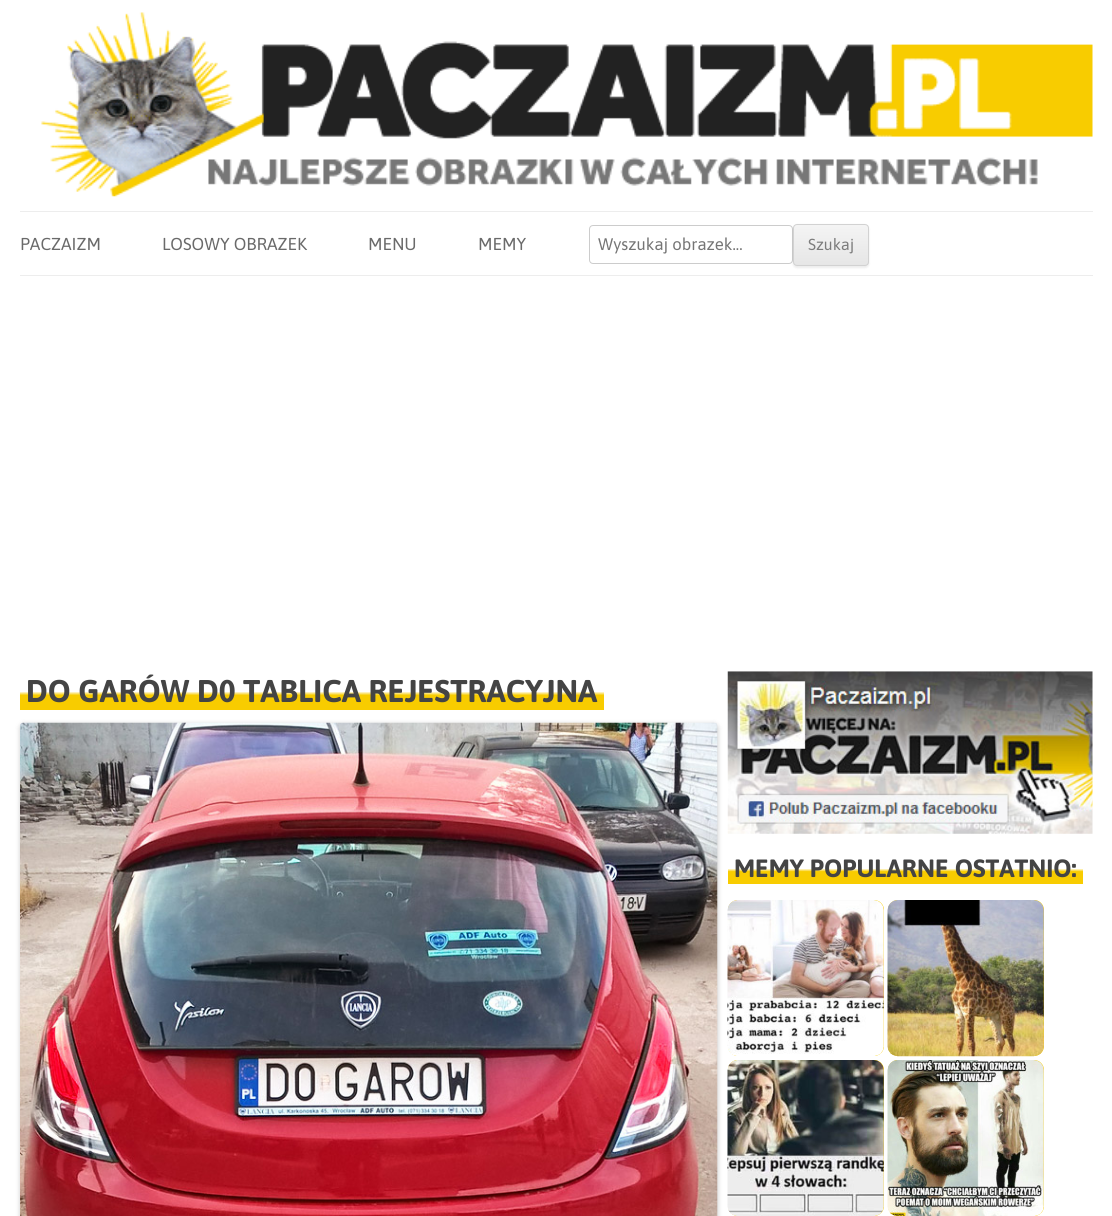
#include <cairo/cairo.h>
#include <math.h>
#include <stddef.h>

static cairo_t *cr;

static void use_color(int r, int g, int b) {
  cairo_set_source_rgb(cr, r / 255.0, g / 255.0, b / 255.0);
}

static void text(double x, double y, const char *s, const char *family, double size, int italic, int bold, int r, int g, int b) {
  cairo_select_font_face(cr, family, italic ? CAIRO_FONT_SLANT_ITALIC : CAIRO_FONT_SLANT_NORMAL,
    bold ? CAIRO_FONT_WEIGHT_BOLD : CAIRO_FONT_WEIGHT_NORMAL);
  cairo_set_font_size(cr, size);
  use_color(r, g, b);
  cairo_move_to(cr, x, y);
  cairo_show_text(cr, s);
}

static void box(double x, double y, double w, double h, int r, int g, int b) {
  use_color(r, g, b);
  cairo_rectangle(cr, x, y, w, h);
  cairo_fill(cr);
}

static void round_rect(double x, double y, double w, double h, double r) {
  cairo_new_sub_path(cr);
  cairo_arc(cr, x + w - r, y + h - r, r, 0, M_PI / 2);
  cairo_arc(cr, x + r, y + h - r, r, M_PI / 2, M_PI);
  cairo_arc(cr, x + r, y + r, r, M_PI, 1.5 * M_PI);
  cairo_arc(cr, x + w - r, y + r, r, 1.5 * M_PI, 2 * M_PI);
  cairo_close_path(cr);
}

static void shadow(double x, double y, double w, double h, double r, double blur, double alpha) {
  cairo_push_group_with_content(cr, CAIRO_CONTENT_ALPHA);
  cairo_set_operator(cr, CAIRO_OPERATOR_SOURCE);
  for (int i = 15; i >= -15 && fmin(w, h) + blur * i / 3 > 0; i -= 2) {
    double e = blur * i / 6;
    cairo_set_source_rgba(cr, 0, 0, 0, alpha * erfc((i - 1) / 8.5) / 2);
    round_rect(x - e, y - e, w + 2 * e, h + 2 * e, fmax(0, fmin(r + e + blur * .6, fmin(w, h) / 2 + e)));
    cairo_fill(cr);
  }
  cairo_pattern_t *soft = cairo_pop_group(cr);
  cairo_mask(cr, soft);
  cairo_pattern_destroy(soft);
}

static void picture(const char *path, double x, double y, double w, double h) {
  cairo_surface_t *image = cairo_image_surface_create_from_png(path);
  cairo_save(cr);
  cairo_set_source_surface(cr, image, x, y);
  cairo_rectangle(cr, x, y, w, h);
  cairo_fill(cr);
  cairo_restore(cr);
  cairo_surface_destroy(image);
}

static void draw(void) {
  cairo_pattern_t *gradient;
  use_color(255, 255, 255);
  cairo_paint(cr);
  picture("img_01.png", 41, 12, 1052, 185);
  box(20, 211, 1073, 1, 237, 237, 237);
  box(20, 275, 1073, 1, 237, 237, 237);
  round_rect(589.5, 225.5, 203, 38, 3.5);
  use_color(204, 204, 204);
  cairo_set_line_width(cr, 1);
  cairo_stroke(cr);
  use_color(64, 64, 64);
  shadow(793, 225, 76, 43, 4, 1, 0.1);
  cairo_save(cr);
  round_rect(793, 224, 76, 42, 4);
  cairo_clip(cr);
  gradient = cairo_pattern_create_linear(831, 225, 831, 265);
  cairo_pattern_add_color_stop_rgba(gradient, 0, 0.957, 0.957, 0.957, 1);
  cairo_pattern_add_color_stop_rgba(gradient, 1, 0.902, 0.902, 0.902, 1);
  cairo_set_source(cr, gradient);
  cairo_pattern_destroy(gradient);
  cairo_rectangle(cr, 793, 225, 76, 40);
  cairo_fill(cr);
  cairo_restore(cr);
  round_rect(793.5, 224.5, 75, 41, 3.5);
  use_color(210, 210, 210);
  cairo_stroke(cr);
  gradient = cairo_pattern_create_linear(312, 673, 312, 710);
  cairo_pattern_add_color_stop_rgba(gradient, 0.5, 1, 1, 1, 1);
  cairo_pattern_add_color_stop_rgba(gradient, 0.6, 0.973, 0.8, 0, 1);
  cairo_set_source(cr, gradient);
  cairo_pattern_destroy(gradient);
  cairo_rectangle(cr, 20, 692, 584, 18);
  cairo_fill(cr);
  use_color(0, 0, 0);
  shadow(20, 724, 698, 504, 4, 2.5, 0.2);
  picture("img_02.png", 20, 722, 698, 494);
  picture("img_03.png", 727, 671, 366, 163);
  gradient = cairo_pattern_create_linear(905, 853, 905, 884);
  cairo_pattern_add_color_stop_rgba(gradient, 0.5, 1, 1, 1, 1);
  cairo_pattern_add_color_stop_rgba(gradient, 0.6, 0.973, 0.8, 0, 1);
  cairo_set_source(cr, gradient);
  cairo_pattern_destroy(gradient);
  cairo_rectangle(cr, 728, 869, 355, 15);
  cairo_fill(cr);
  use_color(248, 205, 5);
  round_rect(728, 900, 156, 156, 10);
  cairo_fill(cr);
  picture("img_04.png", 727, 900, 157, 156);
  round_rect(888, 900, 156, 156, 10);
  cairo_fill(cr);
  picture("img_05.png", 887, 900, 157, 157);
  round_rect(728, 1060, 156, 156, 10);
  cairo_fill(cr);
  picture("img_06.png", 727, 1060, 157, 156);
  round_rect(888, 1060, 156, 156, 10);
  cairo_fill(cr);
  picture("img_07.png", 887, 1060, 157, 156);
  text(20, 250, "PACZAIZM", "Asap", 17.25, 0, 0, 106, 106, 106);
  text(162, 250, "LOSOWY OBRAZEK", "Asap", 17.25, 0, 0, 106, 106, 106);
  text(368, 250, "MENU", "Asap", 17.25, 0, 0, 106, 106, 106);
  text(478, 250, "MEMY", "Asap", 17.25, 0, 0, 106, 106, 106);
  text(598, 250, "Wyszukaj obrazek...", "Asap", 16.75, 0, 0, 117, 117, 117);
  text(808, 250, "Szukaj", "Asap", 16, 0, 0, 124, 124, 124);
  text(26, 702, "DO GARÓW D0 TABLICA REJESTRACYJNA", "Asap", 31.4, 0, 1, 68, 68, 68);
  text(734, 877, "MEMY POPULARNE OSTATNIO:", "Asap", 25, 0, 1, 68, 68, 68);
}

int main(void) {
  cairo_surface_t *surface = cairo_image_surface_create(CAIRO_FORMAT_RGB24, 1112, 1216);
  cr = cairo_create(surface);
  cairo_font_options_t *options = cairo_font_options_create();
  cairo_font_options_set_hint_metrics(options, CAIRO_HINT_METRICS_OFF);
  cairo_font_options_set_hint_style(options, CAIRO_HINT_STYLE_NONE);
  cairo_set_font_options(cr, options);
  cairo_set_miter_limit(cr, 4);
  draw();
  cairo_surface_write_to_png(surface, "out.png");
  cairo_font_options_destroy(options);
  cairo_destroy(cr);
  cairo_surface_destroy(surface);
  return 0;
}
